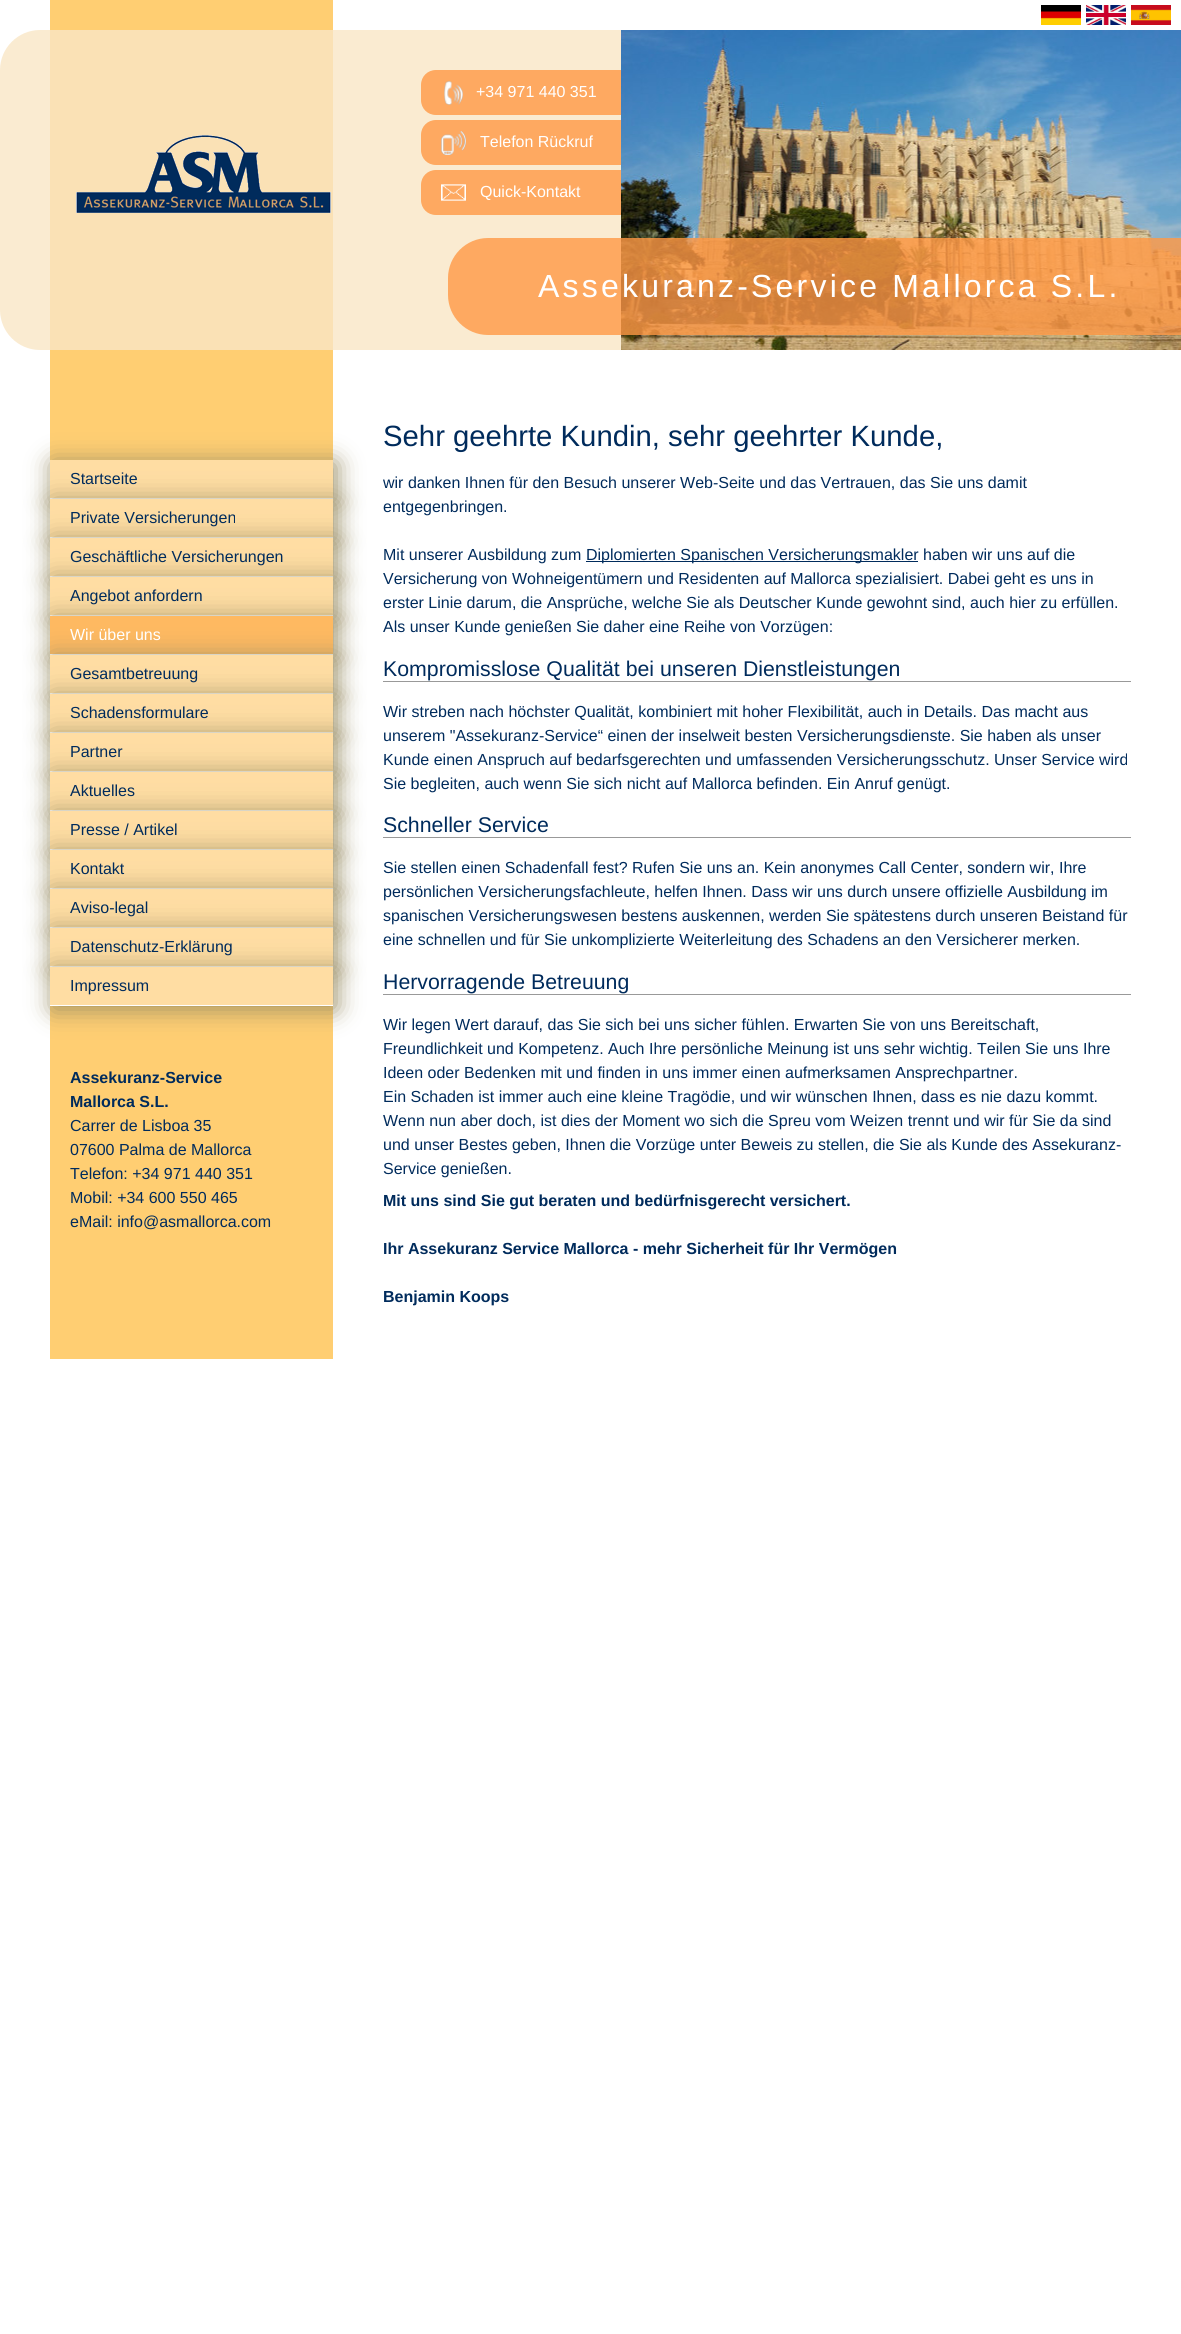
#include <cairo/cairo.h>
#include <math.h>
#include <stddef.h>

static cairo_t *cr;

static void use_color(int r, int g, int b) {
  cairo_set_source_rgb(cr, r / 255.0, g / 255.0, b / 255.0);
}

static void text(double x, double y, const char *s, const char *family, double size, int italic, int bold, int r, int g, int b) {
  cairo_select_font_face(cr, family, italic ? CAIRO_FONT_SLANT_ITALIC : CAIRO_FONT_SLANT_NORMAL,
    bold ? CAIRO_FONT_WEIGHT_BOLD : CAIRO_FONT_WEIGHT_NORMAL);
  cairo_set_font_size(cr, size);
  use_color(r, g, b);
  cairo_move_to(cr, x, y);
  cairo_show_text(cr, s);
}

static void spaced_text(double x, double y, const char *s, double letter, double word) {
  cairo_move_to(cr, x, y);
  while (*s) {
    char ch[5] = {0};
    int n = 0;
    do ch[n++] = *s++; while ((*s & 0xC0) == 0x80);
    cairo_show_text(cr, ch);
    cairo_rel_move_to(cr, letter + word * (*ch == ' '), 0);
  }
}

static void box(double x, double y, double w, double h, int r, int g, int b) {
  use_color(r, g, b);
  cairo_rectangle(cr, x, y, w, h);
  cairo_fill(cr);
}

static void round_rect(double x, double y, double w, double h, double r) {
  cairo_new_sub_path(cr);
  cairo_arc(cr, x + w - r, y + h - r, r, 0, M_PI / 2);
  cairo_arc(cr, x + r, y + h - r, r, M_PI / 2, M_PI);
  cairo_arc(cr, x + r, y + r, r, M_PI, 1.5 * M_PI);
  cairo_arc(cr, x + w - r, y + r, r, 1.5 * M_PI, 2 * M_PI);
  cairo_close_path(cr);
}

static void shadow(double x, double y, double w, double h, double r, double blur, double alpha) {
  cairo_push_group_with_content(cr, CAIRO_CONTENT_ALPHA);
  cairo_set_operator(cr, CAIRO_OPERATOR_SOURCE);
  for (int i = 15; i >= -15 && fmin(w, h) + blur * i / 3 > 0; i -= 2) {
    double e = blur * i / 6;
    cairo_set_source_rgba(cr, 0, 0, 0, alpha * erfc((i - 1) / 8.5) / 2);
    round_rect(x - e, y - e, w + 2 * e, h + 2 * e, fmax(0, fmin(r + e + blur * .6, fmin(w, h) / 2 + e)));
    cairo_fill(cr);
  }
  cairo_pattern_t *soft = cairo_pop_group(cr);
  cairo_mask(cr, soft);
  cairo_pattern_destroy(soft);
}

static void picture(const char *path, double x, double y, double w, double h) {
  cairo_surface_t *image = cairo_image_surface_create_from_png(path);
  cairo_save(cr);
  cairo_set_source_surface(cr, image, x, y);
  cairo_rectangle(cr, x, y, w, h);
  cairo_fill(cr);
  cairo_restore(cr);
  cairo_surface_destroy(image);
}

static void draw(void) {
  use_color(255, 255, 255);
  cairo_paint(cr);
  picture("img_01.png", 1041, 5, 40, 20);
  picture("img_02.png", 1086, 5, 40, 20);
  picture("img_03.png", 1131, 5, 40, 20);
  box(50, 0, 283, 1359, 255, 206, 114);
  cairo_set_source_rgba(cr, 0.973, 0.902, 0.773, 0.8);
  cairo_new_path(cr);
  cairo_move_to(cr, 40, 30);
  cairo_line_to(cr, 1181, 30);
  cairo_line_to(cr, 1181, 350);
  cairo_line_to(cr, 40, 350);
  cairo_curve_to(cr, 18, 350, 0, 332, 0, 310);
  cairo_line_to(cr, 0, 70);
  cairo_curve_to(cr, 0, 48, 18, 30, 40, 30);
  cairo_close_path(cr);
  cairo_fill(cr);
  picture("img_04.png", 76, 135, 255, 78);
  use_color(254, 169, 97);
  cairo_new_path(cr);
  cairo_move_to(cr, 436, 70);
  cairo_line_to(cr, 651, 70);
  cairo_line_to(cr, 651, 115);
  cairo_line_to(cr, 436, 115);
  cairo_curve_to(cr, 427.5, 115, 421, 108.5, 421, 100);
  cairo_line_to(cr, 421, 85);
  cairo_curve_to(cr, 421, 76.5, 427.5, 70, 436, 70);
  cairo_close_path(cr);
  cairo_fill(cr);
  picture("img_05.png", 444, 81, 19, 24);
  cairo_new_path(cr);
  cairo_move_to(cr, 436, 120);
  cairo_line_to(cr, 651, 120);
  cairo_line_to(cr, 651, 165);
  cairo_line_to(cr, 436, 165);
  cairo_curve_to(cr, 427.5, 165, 421, 158.5, 421, 150);
  cairo_line_to(cr, 421, 135);
  cairo_curve_to(cr, 421, 126.5, 427.5, 120, 436, 120);
  cairo_close_path(cr);
  cairo_fill(cr);
  cairo_new_path(cr);
  cairo_move_to(cr, 436, 170);
  cairo_line_to(cr, 651, 170);
  cairo_line_to(cr, 651, 215);
  cairo_line_to(cr, 436, 215);
  cairo_curve_to(cr, 427.5, 215, 421, 208.5, 421, 200);
  cairo_line_to(cr, 421, 185);
  cairo_curve_to(cr, 421, 176.5, 427.5, 170, 436, 170);
  cairo_close_path(cr);
  cairo_fill(cr);
  picture("img_06.png", 621, 30, 560, 320);
  picture("img_07.png", 441, 131, 25, 24);
  picture("img_08.png", 441, 184, 25, 17);
  cairo_set_source_rgba(cr, 1, 0.596, 0.271, 0.8);
  cairo_new_path(cr);
  cairo_move_to(cr, 488, 238);
  cairo_line_to(cr, 1181, 238);
  cairo_line_to(cr, 1181, 335);
  cairo_line_to(cr, 488, 335);
  cairo_curve_to(cr, 466, 335, 448, 317, 448, 295);
  cairo_line_to(cr, 448, 278);
  cairo_curve_to(cr, 448, 256, 466, 238, 488, 238);
  cairo_close_path(cr);
  cairo_fill(cr);
  use_color(153, 141, 100);
  shadow(53, 463, 283, 39, 0, 12.5, 1);
  box(50, 460, 283, 38, 255, 221, 163);
  box(50, 498, 283, 1, 255, 255, 255);
  use_color(153, 141, 100);
  shadow(53, 502, 283, 39, 0, 12.5, 1);
  box(50, 499, 283, 38, 255, 221, 163);
  box(50, 537, 283, 1, 255, 255, 255);
  use_color(153, 141, 100);
  shadow(53, 541, 283, 39, 0, 12.5, 1);
  box(50, 538, 283, 38, 255, 221, 163);
  box(50, 576, 283, 1, 255, 255, 255);
  use_color(153, 141, 100);
  shadow(53, 580, 283, 39, 0, 12.5, 1);
  box(50, 577, 283, 38, 255, 221, 163);
  box(50, 615, 283, 1, 255, 255, 255);
  use_color(153, 141, 100);
  shadow(53, 619, 283, 39, 0, 12.5, 1);
  box(50, 616, 283, 38, 254, 185, 97);
  box(50, 654, 283, 1, 255, 255, 255);
  use_color(153, 141, 100);
  shadow(53, 658, 283, 39, 0, 12.5, 1);
  box(50, 655, 283, 38, 255, 221, 163);
  box(50, 693, 283, 1, 255, 255, 255);
  use_color(153, 141, 100);
  shadow(53, 697, 283, 39, 0, 12.5, 1);
  box(50, 694, 283, 38, 255, 221, 163);
  box(50, 732, 283, 1, 255, 255, 255);
  use_color(153, 141, 100);
  shadow(53, 736, 283, 39, 0, 12.5, 1);
  box(50, 733, 283, 38, 255, 221, 163);
  box(50, 771, 283, 1, 255, 255, 255);
  use_color(153, 141, 100);
  shadow(53, 775, 283, 39, 0, 12.5, 1);
  box(50, 772, 283, 38, 255, 221, 163);
  box(50, 810, 283, 1, 255, 255, 255);
  use_color(153, 141, 100);
  shadow(53, 814, 283, 39, 0, 12.5, 1);
  box(50, 811, 283, 38, 255, 221, 163);
  box(50, 849, 283, 1, 255, 255, 255);
  use_color(153, 141, 100);
  shadow(53, 853, 283, 39, 0, 12.5, 1);
  box(50, 850, 283, 38, 255, 221, 163);
  box(50, 888, 283, 1, 255, 255, 255);
  use_color(153, 141, 100);
  shadow(53, 892, 283, 39, 0, 12.5, 1);
  box(50, 889, 283, 38, 255, 221, 163);
  box(50, 927, 283, 1, 255, 255, 255);
  use_color(153, 141, 100);
  shadow(53, 931, 283, 39, 0, 12.5, 1);
  box(50, 928, 283, 38, 255, 221, 163);
  box(50, 966, 283, 1, 255, 255, 255);
  use_color(153, 141, 100);
  shadow(53, 970, 283, 39, 0, 12.5, 1);
  box(50, 967, 283, 38, 255, 221, 163);
  box(50, 1005, 283, 1, 255, 255, 255);
  box(586, 561, 332, 1, 0, 43, 92);
  box(383, 681, 748, 1, 153, 153, 153);
  box(383, 837, 748, 1, 153, 153, 153);
  box(383, 994, 748, 1, 153, 153, 153);
  text(476, 97, "+34 971 440 351", "Liberation Sans", 16, 0, 0, 255, 255, 255);
  text(480, 147, "Telefon Rückruf", "Liberation Sans", 16, 0, 0, 255, 255, 255);
  text(480, 197, "Quick-Kontakt", "Liberation Sans", 16, 0, 0, 255, 255, 255);
  cairo_set_font_size(cr, 32);
  spaced_text(538, 297, "Assekuranz-Service Mallorca S.L.", 3.2, 0);
  text(70, 484, "Startseite", "Liberation Sans", 16, 0, 0, 0, 43, 92);
  text(70, 523, "Private Versicherungen", "Liberation Sans", 16, 0, 0, 0, 43, 92);
  text(70, 562, "Geschäftliche Versicherungen", "Liberation Sans", 16, 0, 0, 0, 43, 92);
  text(70, 601, "Angebot anfordern", "Liberation Sans", 16, 0, 0, 0, 43, 92);
  text(70, 640, "Wir über uns", "Liberation Sans", 16, 0, 0, 255, 255, 255);
  text(70, 679, "Gesamtbetreuung", "Liberation Sans", 16, 0, 0, 0, 43, 92);
  text(70, 718, "Schadensformulare", "Liberation Sans", 16, 0, 0, 0, 43, 92);
  text(70, 757, "Partner", "Liberation Sans", 16, 0, 0, 0, 43, 92);
  text(70, 796, "Aktuelles", "Liberation Sans", 16, 0, 0, 0, 43, 92);
  text(70, 835, "Presse / Artikel", "Liberation Sans", 16, 0, 0, 0, 43, 92);
  text(70, 874, "Kontakt", "Liberation Sans", 16, 0, 0, 0, 43, 92);
  text(70, 913, "Aviso-legal", "Liberation Sans", 16, 0, 0, 0, 43, 92);
  text(70, 952, "Datenschutz-Erklärung", "Liberation Sans", 16, 0, 0, 0, 43, 92);
  text(70, 991, "Impressum", "Liberation Sans", 16, 0, 0, 0, 43, 92);
  text(70, 1083, "Assekuranz-Service", "Liberation Sans", 16, 0, 1, 0, 43, 92);
  text(70, 1107, "Mallorca S.L.", "Liberation Sans", 16, 0, 1, 0, 43, 92);
  text(70, 1131, "Carrer de Lisboa 35", "Liberation Sans", 16, 0, 0, 0, 43, 92);
  text(70, 1155, "07600 Palma de Mallorca", "Liberation Sans", 16, 0, 0, 0, 43, 92);
  text(70, 1179, "Telefon: +34 971 440 351", "Liberation Sans", 16, 0, 0, 0, 43, 92);
  text(70, 1203, "Mobil: +34 600 550 465", "Liberation Sans", 16, 0, 0, 0, 43, 92);
  text(70, 1227, "eMail: info@asmallorca.com", "Liberation Sans", 16, 0, 0, 0, 43, 92);
  text(383, 446, "Sehr geehrte Kundin, sehr geehrter Kunde,", "Liberation Sans", 29.3, 0, 0, 0, 43, 92);
  text(383, 488, "wir danken Ihnen für den Besuch unserer Web-Seite und das Vertrauen, das Sie uns damit", "Liberation Sans", 16, 0, 0, 0, 43, 92);
  text(383, 512, "entgegenbringen.", "Liberation Sans", 16, 0, 0, 0, 43, 92);
  text(383, 560, "Mit unserer Ausbildung zum", "Liberation Sans", 16, 0, 0, 0, 43, 92);
  text(586, 560, "Diplomierten Spanischen Versicherungsmakler haben wir uns auf die", "Liberation Sans", 16, 0, 0, 0, 43, 92);
  text(383, 584, "Versicherung von Wohneigentümern und Residenten auf Mallorca spezialisiert. Dabei geht es uns in", "Liberation Sans", 16, 0, 0, 0, 43, 92);
  text(383, 608, "erster Linie darum, die Ansprüche, welche Sie als Deutscher Kunde gewohnt sind, auch hier zu erfüllen.", "Liberation Sans", 16, 0, 0, 0, 43, 92);
  text(383, 632, "Als unser Kunde genießen Sie daher eine Reihe von Vorzügen:", "Liberation Sans", 16, 0, 0, 0, 43, 92);
  text(383, 676, "Kompromisslose Qualität bei unseren Dienstleistungen", "Liberation Sans", 21.3, 0, 0, 0, 43, 92);
  text(383, 717, "Wir streben nach höchster Qualität, kombiniert mit hoher Flexibilität, auch in Details. Das macht aus", "Liberation Sans", 16, 0, 0, 0, 43, 92);
  text(383, 741, "unserem \"Assekuranz-Service“ einen der inselweit besten Versicherungsdienste. Sie haben als unser", "Liberation Sans", 16, 0, 0, 0, 43, 92);
  text(383, 765, "Kunde einen Anspruch auf bedarfsgerechten und umfassenden Versicherungsschutz. Unser Service wird", "Liberation Sans", 16, 0, 0, 0, 43, 92);
  text(383, 789, "Sie begleiten, auch wenn Sie sich nicht auf Mallorca befinden. Ein Anruf genügt.", "Liberation Sans", 16, 0, 0, 0, 43, 92);
  text(383, 832, "Schneller Service", "Liberation Sans", 21.3, 0, 0, 0, 43, 92);
  text(383, 873, "Sie stellen einen Schadenfall fest? Rufen Sie uns an. Kein anonymes Call Center, sondern wir, Ihre", "Liberation Sans", 16, 0, 0, 0, 43, 92);
  text(383, 897, "persönlichen Versicherungsfachleute, helfen Ihnen. Dass wir uns durch unsere offizielle Ausbildung im", "Liberation Sans", 16, 0, 0, 0, 43, 92);
  text(383, 921, "spanischen Versicherungswesen bestens auskennen, werden Sie spätestens durch unseren Beistand für", "Liberation Sans", 16, 0, 0, 0, 43, 92);
  text(383, 945, "eine schnellen und für Sie unkomplizierte Weiterleitung des Schadens an den Versicherer merken.", "Liberation Sans", 16, 0, 0, 0, 43, 92);
  text(383, 989, "Hervorragende Betreuung", "Liberation Sans", 21.3, 0, 0, 0, 43, 92);
  text(383, 1030, "Wir legen Wert darauf, das Sie sich bei uns sicher fühlen. Erwarten Sie von uns Bereitschaft,", "Liberation Sans", 16, 0, 0, 0, 43, 92);
  text(383, 1054, "Freundlichkeit und Kompetenz. Auch Ihre persönliche Meinung ist uns sehr wichtig. Teilen Sie uns Ihre", "Liberation Sans", 16, 0, 0, 0, 43, 92);
  text(383, 1078, "Ideen oder Bedenken mit und finden in uns immer einen aufmerksamen Ansprechpartner.", "Liberation Sans", 16, 0, 0, 0, 43, 92);
  text(383, 1102, "Ein Schaden ist immer auch eine kleine Tragödie, und wir wünschen Ihnen, dass es nie dazu kommt.", "Liberation Sans", 16, 0, 0, 0, 43, 92);
  text(383, 1126, "Wenn nun aber doch, ist dies der Moment wo sich die Spreu vom Weizen trennt und wir für Sie da sind", "Liberation Sans", 16, 0, 0, 0, 43, 92);
  text(383, 1150, "und unser Bestes geben, Ihnen die Vorzüge unter Beweis zu stellen, die Sie als Kunde des Assekuranz-", "Liberation Sans", 16, 0, 0, 0, 43, 92);
  text(383, 1174, "Service genießen.", "Liberation Sans", 16, 0, 0, 0, 43, 92);
  text(383, 1206, "Mit uns sind Sie gut beraten und bedürfnisgerecht versichert.", "Liberation Sans", 16, 0, 1, 0, 43, 92);
  text(383, 1254, "Ihr Assekuranz Service Mallorca - mehr Sicherheit für Ihr Vermögen", "Liberation Sans", 16, 0, 1, 0, 43, 92);
  text(383, 1302, "Benjamin Koops", "Liberation Sans", 16, 0, 1, 0, 43, 92);
}

int main(void) {
  cairo_surface_t *surface = cairo_image_surface_create(CAIRO_FORMAT_RGB24, 1181, 2334);
  cr = cairo_create(surface);
  cairo_font_options_t *options = cairo_font_options_create();
  cairo_font_options_set_hint_metrics(options, CAIRO_HINT_METRICS_OFF);
  cairo_font_options_set_hint_style(options, CAIRO_HINT_STYLE_NONE);
  cairo_set_font_options(cr, options);
  cairo_set_miter_limit(cr, 4);
  draw();
  cairo_surface_write_to_png(surface, "out.png");
  cairo_font_options_destroy(options);
  cairo_destroy(cr);
  cairo_surface_destroy(surface);
  return 0;
}
